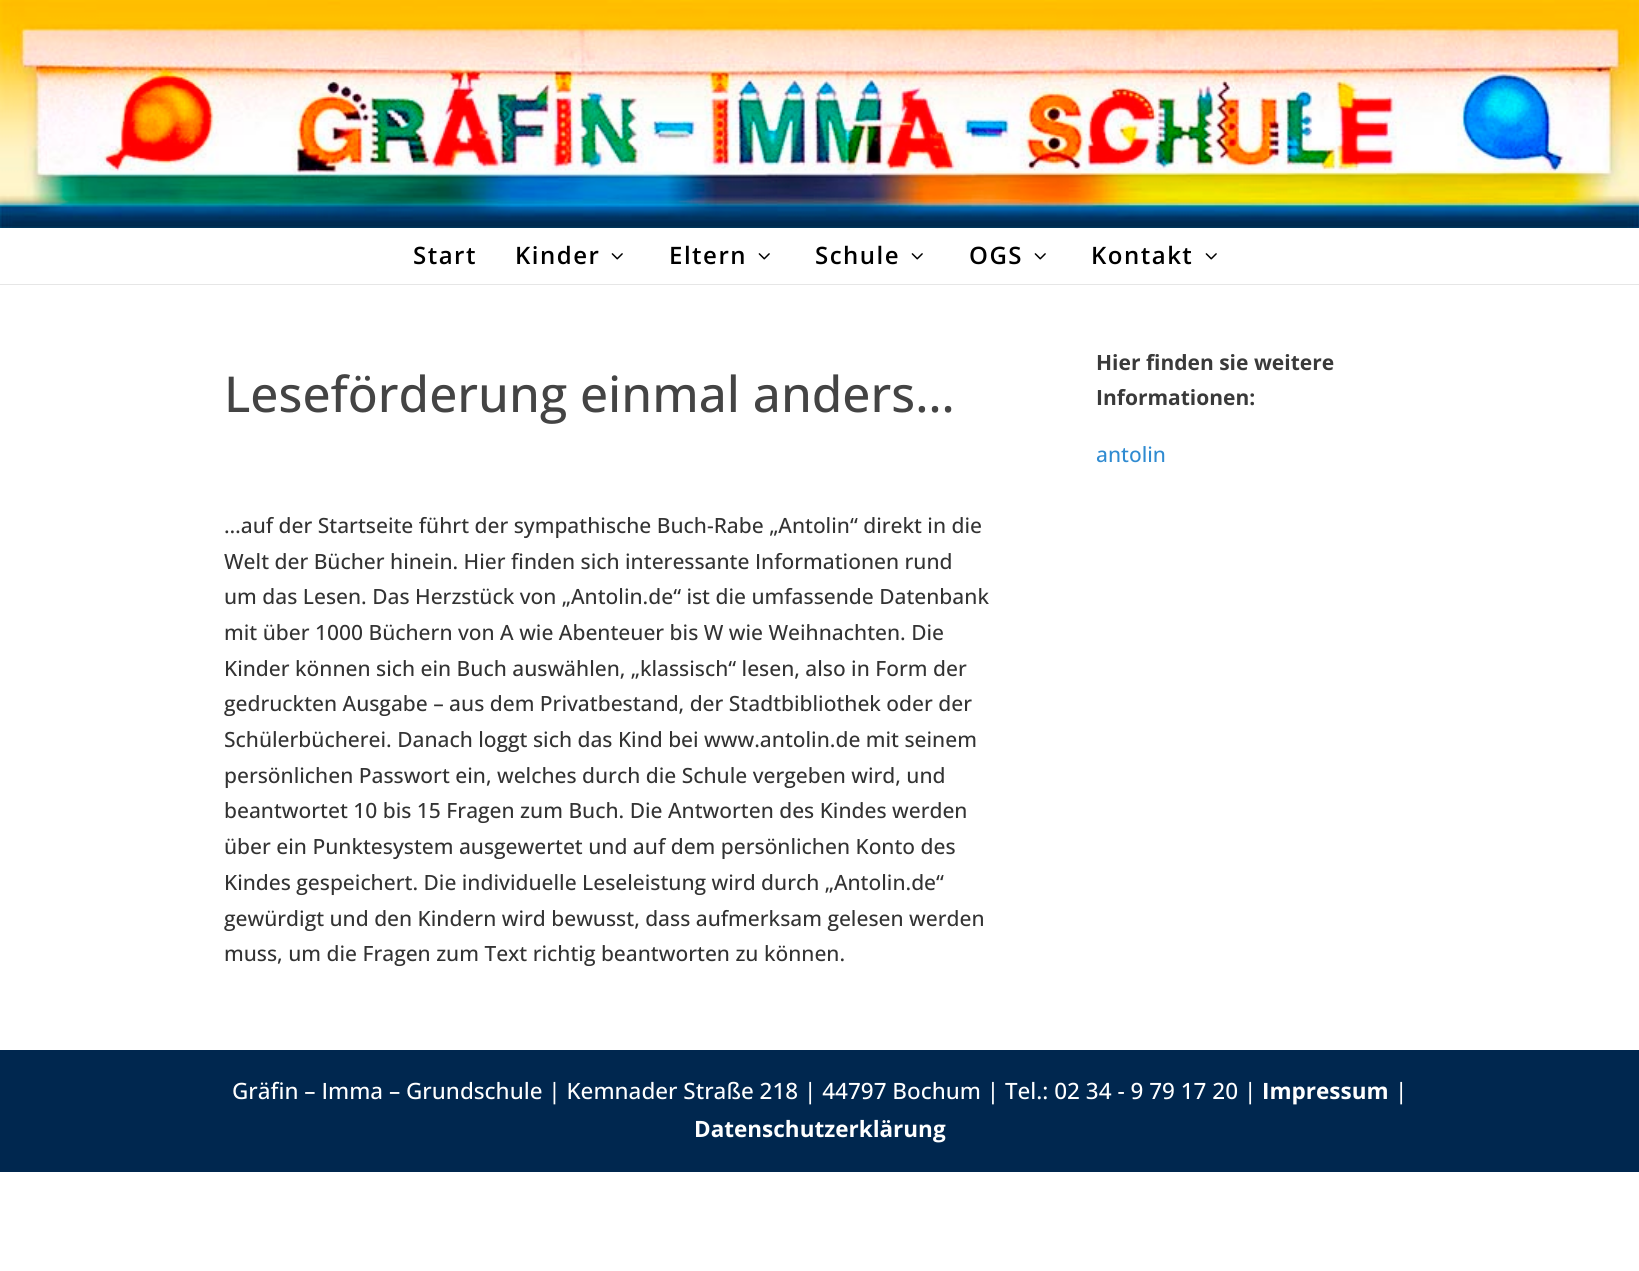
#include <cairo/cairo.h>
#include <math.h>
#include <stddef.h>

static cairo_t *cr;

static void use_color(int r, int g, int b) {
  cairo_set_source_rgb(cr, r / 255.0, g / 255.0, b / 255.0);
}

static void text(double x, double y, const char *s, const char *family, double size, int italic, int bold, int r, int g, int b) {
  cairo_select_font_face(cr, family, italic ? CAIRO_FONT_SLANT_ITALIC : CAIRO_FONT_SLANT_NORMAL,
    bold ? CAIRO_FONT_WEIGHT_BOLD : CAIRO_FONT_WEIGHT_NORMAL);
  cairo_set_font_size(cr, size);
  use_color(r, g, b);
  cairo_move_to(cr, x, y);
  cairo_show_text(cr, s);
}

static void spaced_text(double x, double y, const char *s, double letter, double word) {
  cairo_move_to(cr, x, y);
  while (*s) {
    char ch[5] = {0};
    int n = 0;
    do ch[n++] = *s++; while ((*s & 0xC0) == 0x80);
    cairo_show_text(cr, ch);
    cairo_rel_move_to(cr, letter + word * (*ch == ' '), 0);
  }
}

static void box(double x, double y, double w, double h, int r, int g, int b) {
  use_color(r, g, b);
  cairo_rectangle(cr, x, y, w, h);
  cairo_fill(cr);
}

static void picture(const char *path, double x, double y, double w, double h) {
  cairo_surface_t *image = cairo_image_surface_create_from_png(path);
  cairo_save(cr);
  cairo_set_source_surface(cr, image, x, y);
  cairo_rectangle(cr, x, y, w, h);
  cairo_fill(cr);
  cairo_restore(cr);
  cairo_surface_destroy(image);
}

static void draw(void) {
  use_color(255, 255, 255);
  cairo_paint(cr);
  picture("img_01.png", 0, 0, 1639, 228);
  use_color(230, 230, 230);
  cairo_new_path(cr);
  cairo_move_to(cr, 0, 284);
  cairo_line_to(cr, 0, 285);
  cairo_line_to(cr, 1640, 285);
  cairo_line_to(cr, 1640, 230);
  cairo_line_to(cr, 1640, 284);
  cairo_close_path(cr);
  cairo_fill(cr);
  picture("img_02.png", 611, 253, 12, 7);
  picture("img_02.png", 758, 253, 12, 7);
  picture("img_02.png", 911, 253, 12, 7);
  picture("img_02.png", 1034, 253, 12, 7);
  picture("img_02.png", 1205, 253, 12, 7);
  box(0, 1050, 1639, 122, 0, 39, 79);
  cairo_select_font_face(cr, "Open Sans SemiBold", CAIRO_FONT_SLANT_NORMAL, CAIRO_FONT_WEIGHT_NORMAL);
  cairo_set_font_size(cr, 24);
  use_color(0, 0, 0);
  spaced_text(413, 264, "Start", 1.5, 0);
  spaced_text(515, 264, "Kinder", 1.5, 0);
  spaced_text(669, 264, "Eltern", 1.5, 0);
  spaced_text(815, 264, "Schule", 1.5, 0);
  spaced_text(969, 264, "OGS", 1.5, 0);
  spaced_text(1091, 264, "Kontakt", 1.5, 0);
  text(224, 412, "Leseförderung einmal anders…", "Open Sans Medium", 49.5, 0, 0, 68, 68, 68);
  text(224, 533, "…auf der Startseite führt der sympathische Buch-Rabe „Antolin“ direkt in die", "Open Sans Medium", 21, 0, 0, 51, 51, 51);
  text(224, 569, "Welt der Bücher hinein. Hier finden sich interessante Informationen rund", "Open Sans Medium", 21, 0, 0, 51, 51, 51);
  text(224, 604, "um das Lesen. Das Herzstück von „Antolin.de“ ist die umfassende Datenbank", "Open Sans Medium", 21, 0, 0, 51, 51, 51);
  text(224, 640, "mit über 1000 Büchern von A wie Abenteuer bis W wie Weihnachten. Die", "Open Sans Medium", 21, 0, 0, 51, 51, 51);
  text(224, 676, "Kinder können sich ein Buch auswählen, „klassisch“ lesen, also in Form der", "Open Sans Medium", 21, 0, 0, 51, 51, 51);
  text(224, 711, "gedruckten Ausgabe – aus dem Privatbestand, der Stadtbibliothek oder der", "Open Sans Medium", 21, 0, 0, 51, 51, 51);
  text(224, 747, "Schülerbücherei. Danach loggt sich das Kind bei www.antolin.de mit seinem", "Open Sans Medium", 21, 0, 0, 51, 51, 51);
  text(224, 783, "persönlichen Passwort ein, welches durch die Schule vergeben wird, und", "Open Sans Medium", 21, 0, 0, 51, 51, 51);
  text(224, 818, "beantwortet 10 bis 15 Fragen zum Buch. Die Antworten des Kindes werden", "Open Sans Medium", 21, 0, 0, 51, 51, 51);
  text(224, 854, "über ein Punktesystem ausgewertet und auf dem persönlichen Konto des", "Open Sans Medium", 21, 0, 0, 51, 51, 51);
  text(224, 890, "Kindes gespeichert. Die individuelle Leseleistung wird durch „Antolin.de“", "Open Sans Medium", 21, 0, 0, 51, 51, 51);
  text(224, 926, "gewürdigt und den Kindern wird bewusst, dass aufmerksam gelesen werden", "Open Sans Medium", 21, 0, 0, 51, 51, 51);
  text(224, 961, "muss, um die Fragen zum Text richtig beantworten zu können.", "Open Sans Medium", 21, 0, 0, 51, 51, 51);
  text(1096, 370, "Hier finden sie weitere", "Open Sans", 21, 0, 1, 58, 58, 58);
  text(1096, 405, "Informationen:", "Open Sans", 21, 0, 1, 58, 58, 58);
  text(1096, 462, "antolin", "Open Sans Medium", 21, 0, 0, 48, 139, 209);
  text(232, 1099, "Gräfin – Imma – Grundschule | Kemnader Straße 218 | 44797 Bochum | Tel.: 02 34 - 9 79 17 20 |", "Open Sans Medium", 22.5, 0, 0, 255, 255, 255);
  text(1262, 1099, "Impressum", "Open Sans", 22.5, 0, 1, 255, 255, 255);
  text(1395, 1099, "|", "Open Sans Medium", 22.5, 0, 0, 255, 255, 255);
  text(694, 1137, "Datenschutzerklärung", "Open Sans", 22.5, 0, 1, 255, 255, 255);
}

int main(void) {
  cairo_surface_t *surface = cairo_image_surface_create(CAIRO_FORMAT_RGB24, 1639, 1271);
  cr = cairo_create(surface);
  cairo_font_options_t *options = cairo_font_options_create();
  cairo_font_options_set_hint_metrics(options, CAIRO_HINT_METRICS_OFF);
  cairo_font_options_set_hint_style(options, CAIRO_HINT_STYLE_NONE);
  cairo_set_font_options(cr, options);
  cairo_set_miter_limit(cr, 4);
  draw();
  cairo_surface_write_to_png(surface, "out.png");
  cairo_font_options_destroy(options);
  cairo_destroy(cr);
  cairo_surface_destroy(surface);
  return 0;
}
